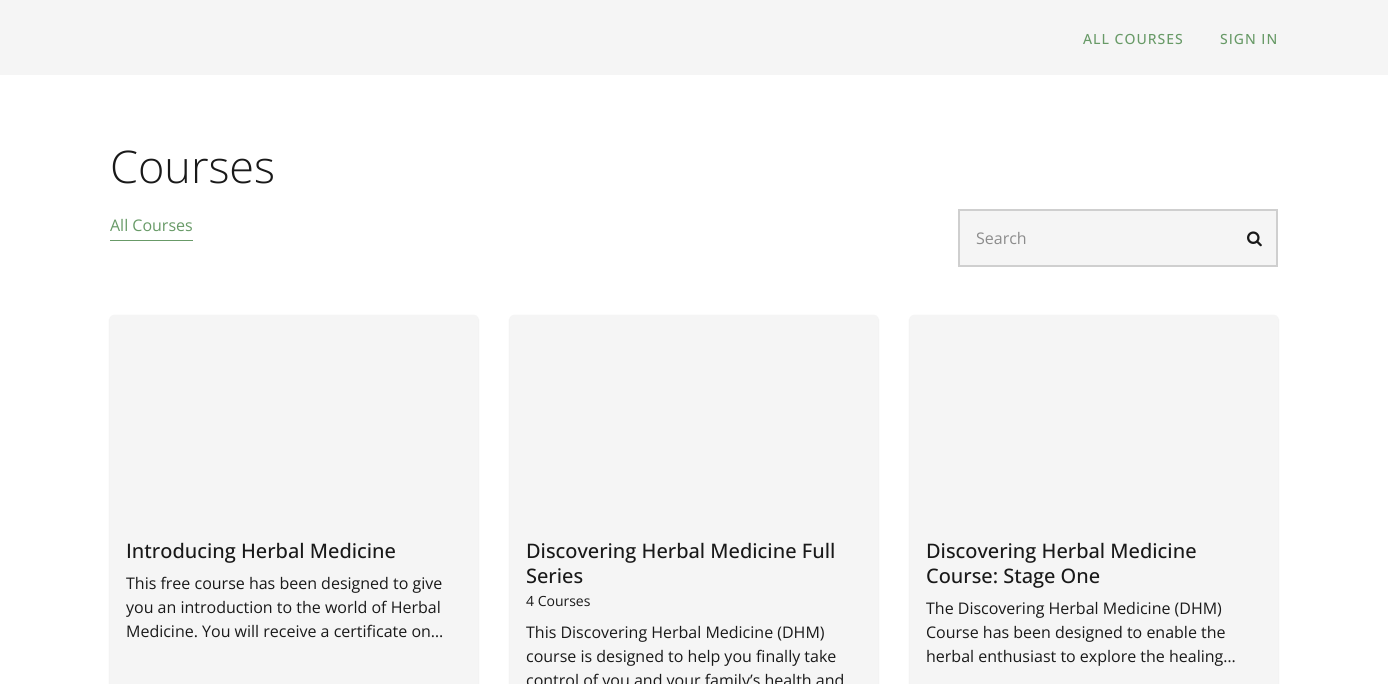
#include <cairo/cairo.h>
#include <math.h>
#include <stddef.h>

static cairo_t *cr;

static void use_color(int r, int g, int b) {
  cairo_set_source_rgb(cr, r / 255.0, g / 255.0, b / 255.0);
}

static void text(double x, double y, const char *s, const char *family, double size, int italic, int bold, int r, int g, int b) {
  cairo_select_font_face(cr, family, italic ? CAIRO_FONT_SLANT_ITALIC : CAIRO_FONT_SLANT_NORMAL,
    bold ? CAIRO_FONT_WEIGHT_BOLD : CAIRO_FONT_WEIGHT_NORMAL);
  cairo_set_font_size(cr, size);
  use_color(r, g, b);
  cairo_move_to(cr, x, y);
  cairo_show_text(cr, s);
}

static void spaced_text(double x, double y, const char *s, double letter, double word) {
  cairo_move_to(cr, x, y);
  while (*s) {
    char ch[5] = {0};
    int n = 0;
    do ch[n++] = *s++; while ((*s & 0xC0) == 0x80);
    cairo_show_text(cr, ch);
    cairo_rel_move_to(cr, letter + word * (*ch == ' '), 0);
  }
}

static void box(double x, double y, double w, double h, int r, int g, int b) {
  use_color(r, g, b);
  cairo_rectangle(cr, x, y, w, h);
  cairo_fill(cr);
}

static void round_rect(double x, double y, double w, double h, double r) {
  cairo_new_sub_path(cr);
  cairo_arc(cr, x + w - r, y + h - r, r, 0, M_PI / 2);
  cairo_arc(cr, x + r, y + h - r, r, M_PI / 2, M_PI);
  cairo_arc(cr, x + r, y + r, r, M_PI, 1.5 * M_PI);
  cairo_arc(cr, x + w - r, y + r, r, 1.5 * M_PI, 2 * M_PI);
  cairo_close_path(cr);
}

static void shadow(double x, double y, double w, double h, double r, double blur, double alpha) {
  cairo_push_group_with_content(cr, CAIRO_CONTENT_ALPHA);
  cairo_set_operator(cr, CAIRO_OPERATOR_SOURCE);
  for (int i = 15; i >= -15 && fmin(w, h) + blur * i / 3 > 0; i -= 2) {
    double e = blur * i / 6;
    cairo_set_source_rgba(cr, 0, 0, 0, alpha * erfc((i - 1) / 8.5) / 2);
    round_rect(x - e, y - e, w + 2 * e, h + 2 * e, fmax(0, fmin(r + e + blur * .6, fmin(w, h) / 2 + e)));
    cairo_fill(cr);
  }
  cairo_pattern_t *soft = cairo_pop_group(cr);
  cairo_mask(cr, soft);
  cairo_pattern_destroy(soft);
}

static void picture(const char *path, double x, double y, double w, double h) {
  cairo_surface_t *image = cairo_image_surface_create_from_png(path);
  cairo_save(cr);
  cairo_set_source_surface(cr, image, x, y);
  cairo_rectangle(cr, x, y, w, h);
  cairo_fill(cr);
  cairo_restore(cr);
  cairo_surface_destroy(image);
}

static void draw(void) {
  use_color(255, 255, 255);
  cairo_paint(cr);
  box(0, 0, 1388, 75, 245, 245, 245);
  box(110, 240, 83, 1, 104, 154, 103);
  use_color(245, 245, 245);
  cairo_rectangle(cr, 959, 210, 318, 56);
  cairo_fill_preserve(cr);
  use_color(207, 207, 207);
  cairo_stroke(cr);
  picture("img_01.png", 1247, 231, 15, 16);
  use_color(0, 0, 0);
  shadow(110, 316, 368, 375, 4, 1, 0.15);
  use_color(245, 245, 245);
  round_rect(110, 315, 368, 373, 4);
  cairo_fill(cr);
  use_color(0, 0, 0);
  shadow(510, 316, 368, 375, 4, 1, 0.15);
  use_color(245, 245, 245);
  round_rect(510, 315, 368, 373, 4);
  cairo_fill(cr);
  use_color(0, 0, 0);
  shadow(910, 316, 368, 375, 4, 1, 0.15);
  use_color(245, 245, 245);
  round_rect(910, 315, 368, 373, 4);
  cairo_fill(cr);
  cairo_select_font_face(cr, "Open Sans Medium", CAIRO_FONT_SLANT_NORMAL, CAIRO_FONT_WEIGHT_NORMAL);
  cairo_set_font_size(cr, 14);
  use_color(104, 154, 103);
  spaced_text(1083, 44, "ALL COURSES", 1, 0);
  spaced_text(1220, 44, "SIGN IN", 1, 0);
  text(110, 183, "Courses", "Open Sans Light", 45, 0, 0, 25, 25, 25);
  text(110, 231, "All Courses", "Open Sans", 16, 0, 0, 104, 154, 103);
  text(976, 244, "Search", "Open Sans", 16, 0, 0, 140, 140, 140);
  text(126, 558, "Introducing Herbal Medicine", "Open Sans Medium", 20, 0, 0, 25, 25, 25);
  text(126, 589, "This free course has been designed to give", "Open Sans", 16, 0, 0, 25, 25, 25);
  text(126, 613, "you an introduction to the world of Herbal", "Open Sans", 16, 0, 0, 25, 25, 25);
  text(126, 637, "Medicine. You will receive a certificate on…", "Open Sans", 16, 0, 0, 25, 25, 25);
  text(526, 558, "Discovering Herbal Medicine Full", "Open Sans Medium", 20, 0, 0, 25, 25, 25);
  text(526, 583, "Series", "Open Sans Medium", 20, 0, 0, 25, 25, 25);
  text(526, 606, "4 Courses", "Open Sans", 14, 0, 0, 25, 25, 25);
  text(526, 638, "This Discovering Herbal Medicine (DHM)", "Open Sans", 16, 0, 0, 25, 25, 25);
  text(526, 662, "course is designed to help you finally take", "Open Sans", 16, 0, 0, 25, 25, 25);
  text(526, 686, "control of you and your family’s health and", "Open Sans", 16, 0, 0, 25, 25, 25);
  text(926, 558, "Discovering Herbal Medicine", "Open Sans Medium", 20, 0, 0, 25, 25, 25);
  text(926, 583, "Course: Stage One", "Open Sans Medium", 20, 0, 0, 25, 25, 25);
  text(926, 614, "The Discovering Herbal Medicine (DHM)", "Open Sans", 16, 0, 0, 25, 25, 25);
  text(926, 638, "Course has been designed to enable the", "Open Sans", 16, 0, 0, 25, 25, 25);
  text(926, 662, "herbal enthusiast to explore the healing…", "Open Sans", 16, 0, 0, 25, 25, 25);
}

int main(void) {
  cairo_surface_t *surface = cairo_image_surface_create(CAIRO_FORMAT_RGB24, 1388, 684);
  cr = cairo_create(surface);
  cairo_font_options_t *options = cairo_font_options_create();
  cairo_font_options_set_hint_metrics(options, CAIRO_HINT_METRICS_OFF);
  cairo_font_options_set_hint_style(options, CAIRO_HINT_STYLE_NONE);
  cairo_set_font_options(cr, options);
  cairo_set_miter_limit(cr, 4);
  draw();
  cairo_surface_write_to_png(surface, "out.png");
  cairo_font_options_destroy(options);
  cairo_destroy(cr);
  cairo_surface_destroy(surface);
  return 0;
}
